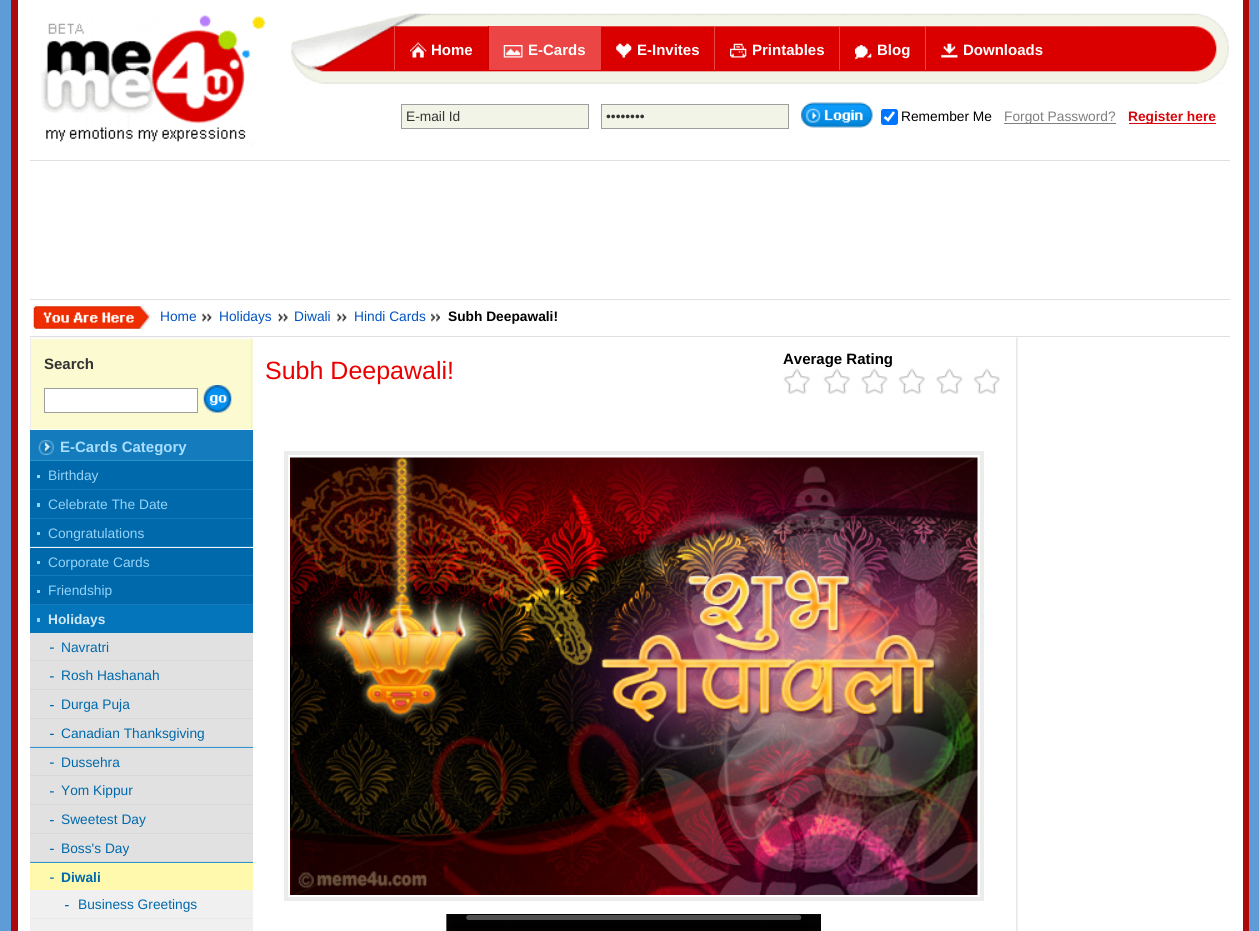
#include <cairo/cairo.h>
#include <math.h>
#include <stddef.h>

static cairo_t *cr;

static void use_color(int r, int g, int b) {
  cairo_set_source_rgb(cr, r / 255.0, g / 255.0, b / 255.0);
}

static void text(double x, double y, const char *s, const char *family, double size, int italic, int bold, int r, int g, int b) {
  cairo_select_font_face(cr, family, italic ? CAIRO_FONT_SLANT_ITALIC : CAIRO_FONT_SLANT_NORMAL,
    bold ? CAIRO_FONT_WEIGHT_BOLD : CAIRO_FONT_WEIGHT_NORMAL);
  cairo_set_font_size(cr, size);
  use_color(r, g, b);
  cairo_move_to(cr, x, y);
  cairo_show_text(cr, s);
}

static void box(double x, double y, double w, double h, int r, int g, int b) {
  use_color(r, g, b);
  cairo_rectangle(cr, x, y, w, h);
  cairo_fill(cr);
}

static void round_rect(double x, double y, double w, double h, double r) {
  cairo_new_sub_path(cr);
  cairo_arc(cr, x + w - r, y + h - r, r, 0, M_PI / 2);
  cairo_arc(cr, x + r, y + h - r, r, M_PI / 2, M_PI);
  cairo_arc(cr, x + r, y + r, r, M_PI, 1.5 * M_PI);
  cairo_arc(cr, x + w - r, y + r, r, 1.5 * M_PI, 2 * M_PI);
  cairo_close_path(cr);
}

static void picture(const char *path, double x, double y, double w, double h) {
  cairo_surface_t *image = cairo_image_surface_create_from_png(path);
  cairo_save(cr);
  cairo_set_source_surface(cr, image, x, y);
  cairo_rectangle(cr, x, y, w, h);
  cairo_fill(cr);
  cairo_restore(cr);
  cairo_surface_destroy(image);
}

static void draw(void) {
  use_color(94, 156, 215);
  cairo_paint(cr);
  box(18, 0, 1225, 931, 255, 255, 255);
  box(1243, 0, 6, 931, 172, 9, 10);
  box(11, 0, 7, 931, 172, 9, 10);
  picture("img_01.png", 41, 15, 225, 131);
  picture("img_02.png", 291, 13, 938, 71);
  box(394, 26, 1, 44, 235, 69, 69);
  picture("img_03.png", 410, 42, 17, 16);
  box(489, 26, 112, 44, 235, 69, 69);
  box(488, 26, 1, 44, 206, 0, 0);
  picture("img_04.png", 503, 45, 20, 13);
  picture("img_05.png", 616, 43, 16, 15);
  box(714, 26, 1, 44, 235, 69, 69);
  picture("img_06.png", 730, 43, 17, 15);
  box(839, 26, 1, 44, 235, 69, 69);
  picture("img_07.png", 855, 45, 17, 14);
  box(925, 26, 1, 44, 235, 69, 69);
  picture("img_08.png", 941, 43, 17, 15);
  use_color(243, 244, 232);
  cairo_rectangle(cr, 401.5, 104.5, 187, 24);
  cairo_fill_preserve(cr);
  use_color(158, 158, 158);
  cairo_set_line_width(cr, 1);
  cairo_stroke(cr);
  use_color(243, 244, 232);
  cairo_rectangle(cr, 601.5, 104.5, 187, 24);
  cairo_fill_preserve(cr);
  use_color(158, 158, 158);
  cairo_stroke(cr);
  picture("img_09.png", 801, 102, 72, 26);
  use_color(0, 117, 255);
  round_rect(881, 109, 17, 16, 2.5);
  cairo_fill(cr);
  cairo_new_path(cr);
  cairo_move_to(cr, 884.5, 117);
  cairo_line_to(cr, 888, 120);
  cairo_line_to(cr, 894, 112);
  use_color(255, 255, 255);
  cairo_set_line_width(cr, 2.6);
  cairo_stroke(cr);
  box(1004, 123, 112, 1, 127, 127, 127);
  box(1129, 123, 87, 1, 216, 6, 10);
  box(30, 160, 1200, 1, 223, 223, 223);
  box(30, 299, 1200, 1, 223, 223, 223);
  box(30, 336, 1200, 1, 223, 223, 223);
  picture("img_10.png", 33, 306, 119, 23);
  picture("img_11.png", 202, 313, 10, 9);
  picture("img_12.png", 278, 313, 10, 9);
  picture("img_13.png", 337, 313, 10, 9);
  picture("img_14.png", 431, 313, 9, 9);
  picture("img_15.png", 30, 337, 988, 594);
  box(31, 339, 222, 90, 252, 250, 209);
  box(30, 338, 223, 1, 255, 255, 255);
  box(251, 338, 1, 92, 236, 236, 236);
  box(30, 429, 223, 1, 255, 255, 255);
  box(30, 338, 1, 92, 236, 236, 236);
  use_color(255, 255, 255);
  cairo_rectangle(cr, 44.5, 388.5, 153, 24);
  cairo_fill_preserve(cr);
  use_color(158, 158, 158);
  cairo_set_line_width(cr, 1);
  cairo_stroke(cr);
  picture("img_16.png", 203, 385, 29, 28);
  box(30, 430, 223, 30, 20, 123, 188);
  box(30, 460, 223, 1, 39, 150, 204);
  picture("img_17.png", 38, 440, 16, 15);
  box(30, 489, 223, 1, 20, 123, 188);
  box(30, 461, 223, 28, 0, 105, 171);
  box(37, 475, 3, 3, 149, 211, 249);
  box(30, 518, 223, 1, 20, 123, 188);
  box(30, 490, 223, 28, 0, 105, 171);
  box(37, 503, 3, 4, 149, 211, 249);
  box(30, 546, 223, 1, 20, 123, 188);
  box(30, 519, 223, 27, 0, 105, 171);
  box(37, 532, 3, 3, 149, 211, 249);
  box(30, 575, 223, 1, 20, 123, 188);
  box(30, 548, 223, 27, 0, 105, 171);
  box(37, 561, 3, 3, 149, 211, 249);
  box(30, 604, 223, 1, 20, 123, 188);
  box(30, 576, 223, 28, 0, 105, 171);
  box(37, 590, 3, 3, 149, 211, 249);
  box(30, 747, 223, 116, 48, 148, 211);
  box(30, 605, 223, 28, 5, 117, 187);
  box(37, 618, 3, 4, 149, 211, 249);
  box(30, 660, 223, 1, 216, 216, 216);
  box(30, 633, 223, 27, 225, 225, 225);
  picture("img_18.png", 50, 647, 4, 2);
  box(30, 689, 223, 1, 216, 216, 216);
  box(30, 661, 223, 28, 225, 225, 225);
  picture("img_19.png", 50, 676, 4, 2);
  box(30, 718, 223, 1, 216, 216, 216);
  box(30, 690, 223, 28, 225, 225, 225);
  picture("img_20.png", 50, 705, 4, 2);
  box(30, 746, 223, 1, 216, 216, 216);
  box(30, 719, 223, 27, 225, 225, 225);
  picture("img_21.png", 50, 733, 4, 2);
  box(30, 775, 223, 1, 216, 216, 216);
  box(30, 748, 223, 27, 225, 225, 225);
  picture("img_18.png", 50, 762, 4, 2);
  box(30, 804, 223, 1, 216, 216, 216);
  box(30, 776, 223, 28, 225, 225, 225);
  picture("img_19.png", 50, 791, 4, 2);
  box(30, 833, 223, 1, 216, 216, 216);
  box(30, 805, 223, 28, 225, 225, 225);
  picture("img_20.png", 50, 820, 4, 2);
  box(30, 861, 223, 1, 216, 216, 216);
  box(30, 834, 223, 27, 225, 225, 225);
  picture("img_21.png", 50, 848, 4, 2);
  box(30, 863, 223, 27, 254, 249, 173);
  picture("img_22.png", 50, 877, 4, 2);
  box(30, 918, 223, 1, 233, 233, 233);
  box(30, 890, 223, 28, 241, 240, 240);
  picture("img_23.png", 65, 905, 4, 2);
  box(30, 919, 223, 12, 241, 240, 240);
  cairo_rectangle(cr, 286, 453, 696, 446);
  use_color(236, 236, 236);
  cairo_set_line_width(cr, 4);
  cairo_stroke(cr);
  picture("img_25.png", 290, 457, 688, 438);
  picture("img_26.png", 446, 914, 375, 17);
  text(431, 55, "Home", "Liberation Sans", 15, 0, 1, 255, 255, 255);
  text(528, 55, "E-Cards", "Liberation Sans", 15, 0, 1, 255, 255, 255);
  text(637, 55, "E-Invites", "Liberation Sans", 15, 0, 1, 255, 255, 255);
  text(752, 55, "Printables", "Liberation Sans", 15, 0, 1, 255, 255, 255);
  text(877, 55, "Blog", "Liberation Sans", 15, 0, 1, 255, 255, 255);
  text(963, 55, "Downloads", "Liberation Sans", 15, 0, 1, 255, 255, 255);
  text(406, 121, "E-mail Id", "Liberation Sans", 13.75, 0, 0, 51, 51, 51);
  text(606, 121, "••••••••", "Liberation Sans", 13.75, 0, 0, 51, 51, 51);
  text(901, 121, "Remember Me", "Liberation Sans", 13.75, 0, 0, 0, 0, 0);
  text(1004, 121, "Forgot Password?", "Liberation Sans", 13.75, 0, 0, 127, 127, 127);
  text(1128, 121, "Register here", "Liberation Sans", 13.75, 0, 1, 216, 6, 10);
  text(160, 321, "Home", "Liberation Sans", 13.75, 0, 0, 0, 84, 194);
  text(219, 321, "Holidays", "Liberation Sans", 13.75, 0, 0, 0, 84, 194);
  text(294, 321, "Diwali", "Liberation Sans", 13.75, 0, 0, 0, 84, 194);
  text(354, 321, "Hindi Cards", "Liberation Sans", 13.75, 0, 0, 0, 84, 194);
  text(448, 321, "Subh Deepawali!", "Liberation Sans", 13.75, 0, 1, 0, 0, 0);
  text(44, 369, "Search", "Liberation Sans", 15, 0, 1, 51, 51, 51);
  text(60, 452, "E-Cards Category", "Liberation Sans", 15, 0, 1, 167, 222, 255);
  text(48, 480, "Birthday", "Liberation Sans", 13.75, 0, 0, 149, 211, 249);
  text(48, 509, "Celebrate The Date", "Liberation Sans", 13.75, 0, 0, 149, 211, 249);
  text(48, 538, "Congratulations", "Liberation Sans", 13.75, 0, 0, 149, 211, 249);
  text(48, 567, "Corporate Cards", "Liberation Sans", 13.75, 0, 0, 149, 211, 249);
  text(48, 595, "Friendship", "Liberation Sans", 13.75, 0, 0, 149, 211, 249);
  text(48, 624, "Holidays", "Liberation Sans", 13.75, 0, 1, 208, 232, 246);
  text(61, 652, "Navratri", "Liberation Sans", 13.75, 0, 0, 0, 105, 171);
  text(61, 680, "Rosh Hashanah", "Liberation Sans", 13.75, 0, 0, 0, 105, 171);
  text(61, 709, "Durga Puja", "Liberation Sans", 13.75, 0, 0, 0, 105, 171);
  text(61, 738, "Canadian Thanksgiving", "Liberation Sans", 13.75, 0, 0, 0, 105, 171);
  text(61, 767, "Dussehra", "Liberation Sans", 13.75, 0, 0, 0, 105, 171);
  text(61, 795, "Yom Kippur", "Liberation Sans", 13.75, 0, 0, 0, 105, 171);
  text(61, 824, "Sweetest Day", "Liberation Sans", 13.75, 0, 0, 0, 105, 171);
  text(61, 853, "Boss's Day", "Liberation Sans", 13.75, 0, 0, 0, 105, 171);
  text(61, 882, "Diwali", "Liberation Sans", 13.75, 0, 1, 0, 105, 171);
  text(78, 909, "Business Greetings", "Liberation Sans", 13.75, 0, 0, 0, 105, 171);
  text(265, 379, "Subh Deepawali!", "Liberation Sans", 25, 0, 0, 235, 0, 0);
  text(783, 364, "Average Rating", "Liberation Sans", 15, 0, 1, 0, 0, 0);
  picture("img_24.png", 783, 367, 217, 27);
}

int main(void) {
  cairo_surface_t *surface = cairo_image_surface_create(CAIRO_FORMAT_RGB24, 1259, 931);
  cr = cairo_create(surface);
  cairo_font_options_t *options = cairo_font_options_create();
  cairo_font_options_set_hint_metrics(options, CAIRO_HINT_METRICS_OFF);
  cairo_font_options_set_hint_style(options, CAIRO_HINT_STYLE_NONE);
  cairo_set_font_options(cr, options);
  cairo_set_miter_limit(cr, 4);
  draw();
  cairo_surface_write_to_png(surface, "out.png");
  cairo_font_options_destroy(options);
  cairo_destroy(cr);
  cairo_surface_destroy(surface);
  return 0;
}
